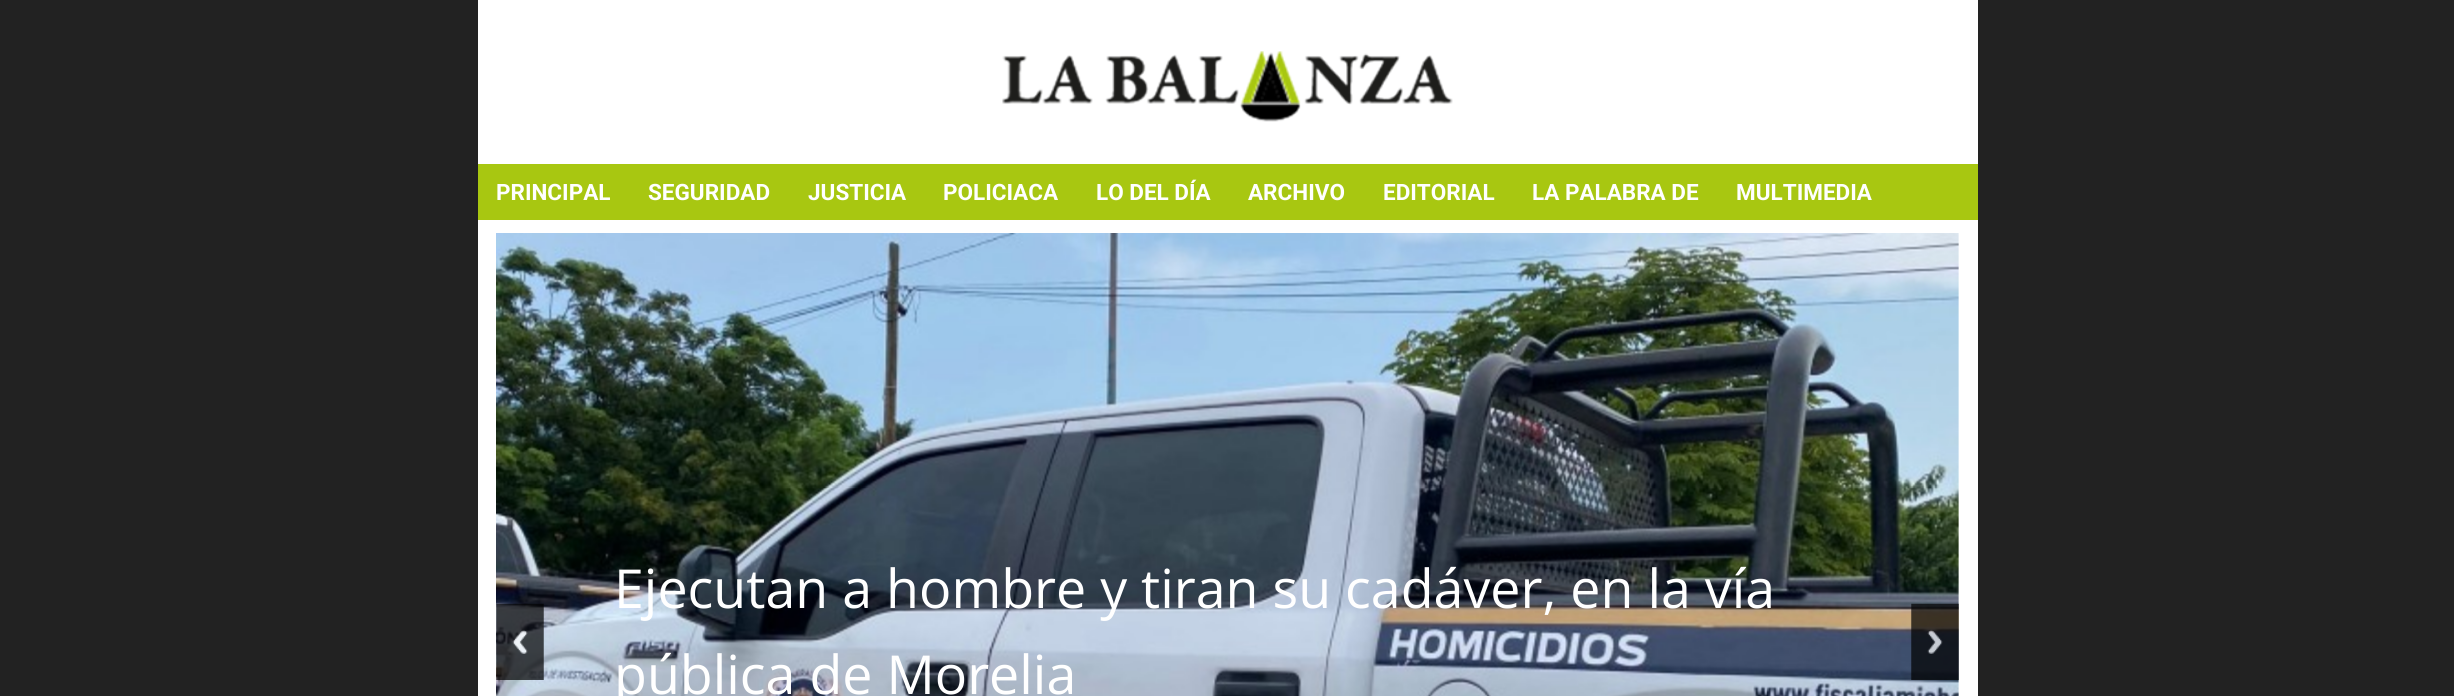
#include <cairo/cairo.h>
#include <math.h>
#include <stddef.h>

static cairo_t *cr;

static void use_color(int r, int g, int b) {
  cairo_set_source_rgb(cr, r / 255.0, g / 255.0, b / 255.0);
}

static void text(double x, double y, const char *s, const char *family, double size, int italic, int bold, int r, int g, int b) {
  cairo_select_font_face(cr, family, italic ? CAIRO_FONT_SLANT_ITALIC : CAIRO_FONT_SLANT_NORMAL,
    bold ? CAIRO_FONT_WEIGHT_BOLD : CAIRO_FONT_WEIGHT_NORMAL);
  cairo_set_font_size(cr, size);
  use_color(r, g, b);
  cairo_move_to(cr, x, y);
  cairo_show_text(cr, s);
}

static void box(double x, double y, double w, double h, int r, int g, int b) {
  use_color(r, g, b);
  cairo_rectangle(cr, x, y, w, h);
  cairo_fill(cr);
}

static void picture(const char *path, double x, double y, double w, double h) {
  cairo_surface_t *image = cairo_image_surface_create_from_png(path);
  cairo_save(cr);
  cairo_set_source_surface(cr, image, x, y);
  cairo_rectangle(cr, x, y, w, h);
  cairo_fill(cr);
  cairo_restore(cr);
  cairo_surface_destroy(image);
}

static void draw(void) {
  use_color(34, 34, 34);
  cairo_paint(cr);
  box(478, 0, 1500, 164, 255, 255, 255);
  picture("img_01.png", 1002, 51, 451, 71);
  box(478, 220, 1500, 476, 255, 255, 255);
  box(1890, 164, 88, 56, 168, 199, 17);
  box(478, 164, 1412, 56, 168, 199, 17);
  picture("img_03.png", 496, 233, 1463, 463);
  picture("img_02.png", 496, 603, 48, 77);
  picture("img_04.png", 1911, 603, 48, 77);
  text(496, 200, "PRINCIPAL", "Roboto", 22.5, 0, 1, 255, 255, 255);
  text(648, 200, "SEGURIDAD", "Roboto", 22.5, 0, 1, 255, 255, 255);
  text(808, 200, "JUSTICIA", "Roboto", 22.5, 0, 1, 255, 255, 255);
  text(943, 200, "POLICIACA", "Roboto", 22.5, 0, 1, 255, 255, 255);
  text(1096, 200, "LO DEL DÍA", "Roboto", 22.5, 0, 1, 255, 255, 255);
  text(1248, 200, "ARCHIVO", "Roboto", 22.5, 0, 1, 255, 255, 255);
  text(1383, 200, "EDITORIAL", "Roboto", 22.5, 0, 1, 255, 255, 255);
  text(1532, 200, "LA PALABRA DE", "Roboto", 22.5, 0, 1, 255, 255, 255);
  text(1736, 200, "MULTIMEDIA", "Roboto", 22.5, 0, 1, 255, 255, 255);
  text(614, 608, "Ejecutan a hombre y tiran su cadáver, en la vía", "Open Sans", 53.75, 0, 0, 255, 255, 255);
  text(614, 694, "pública de Morelia", "Open Sans", 53.75, 0, 0, 255, 255, 255);
}

int main(void) {
  cairo_surface_t *surface = cairo_image_surface_create(CAIRO_FORMAT_RGB24, 2454, 696);
  cr = cairo_create(surface);
  cairo_font_options_t *options = cairo_font_options_create();
  cairo_font_options_set_hint_metrics(options, CAIRO_HINT_METRICS_OFF);
  cairo_font_options_set_hint_style(options, CAIRO_HINT_STYLE_NONE);
  cairo_set_font_options(cr, options);
  cairo_set_miter_limit(cr, 4);
  draw();
  cairo_surface_write_to_png(surface, "out.png");
  cairo_font_options_destroy(options);
  cairo_destroy(cr);
  cairo_surface_destroy(surface);
  return 0;
}
